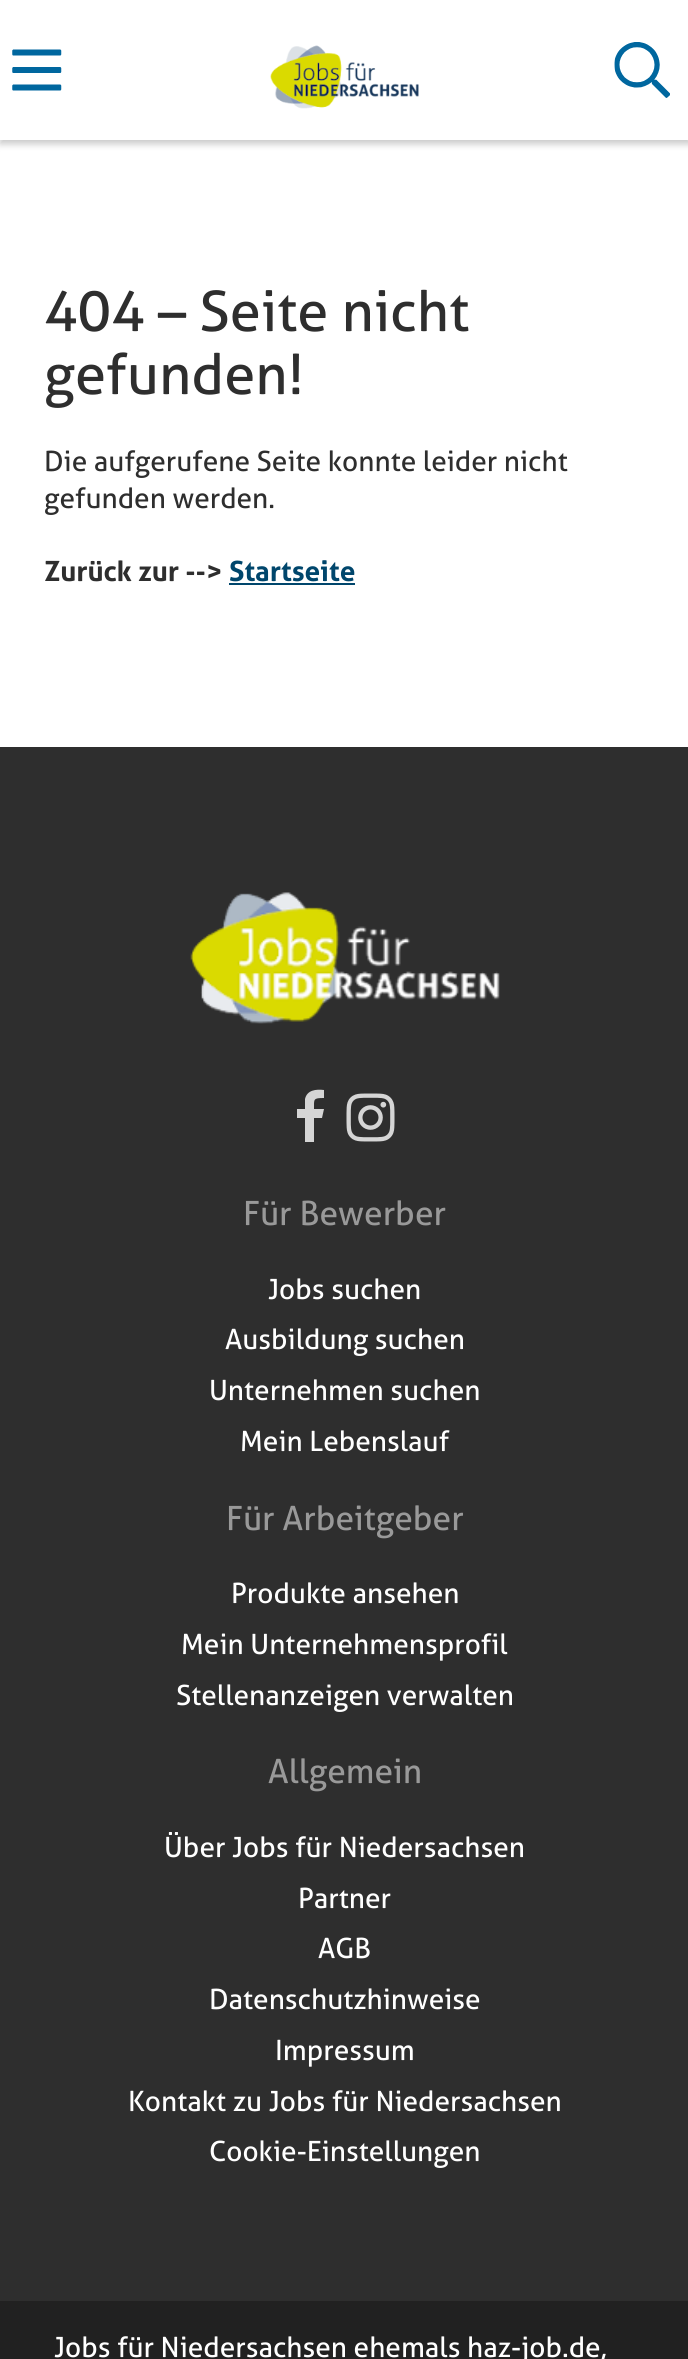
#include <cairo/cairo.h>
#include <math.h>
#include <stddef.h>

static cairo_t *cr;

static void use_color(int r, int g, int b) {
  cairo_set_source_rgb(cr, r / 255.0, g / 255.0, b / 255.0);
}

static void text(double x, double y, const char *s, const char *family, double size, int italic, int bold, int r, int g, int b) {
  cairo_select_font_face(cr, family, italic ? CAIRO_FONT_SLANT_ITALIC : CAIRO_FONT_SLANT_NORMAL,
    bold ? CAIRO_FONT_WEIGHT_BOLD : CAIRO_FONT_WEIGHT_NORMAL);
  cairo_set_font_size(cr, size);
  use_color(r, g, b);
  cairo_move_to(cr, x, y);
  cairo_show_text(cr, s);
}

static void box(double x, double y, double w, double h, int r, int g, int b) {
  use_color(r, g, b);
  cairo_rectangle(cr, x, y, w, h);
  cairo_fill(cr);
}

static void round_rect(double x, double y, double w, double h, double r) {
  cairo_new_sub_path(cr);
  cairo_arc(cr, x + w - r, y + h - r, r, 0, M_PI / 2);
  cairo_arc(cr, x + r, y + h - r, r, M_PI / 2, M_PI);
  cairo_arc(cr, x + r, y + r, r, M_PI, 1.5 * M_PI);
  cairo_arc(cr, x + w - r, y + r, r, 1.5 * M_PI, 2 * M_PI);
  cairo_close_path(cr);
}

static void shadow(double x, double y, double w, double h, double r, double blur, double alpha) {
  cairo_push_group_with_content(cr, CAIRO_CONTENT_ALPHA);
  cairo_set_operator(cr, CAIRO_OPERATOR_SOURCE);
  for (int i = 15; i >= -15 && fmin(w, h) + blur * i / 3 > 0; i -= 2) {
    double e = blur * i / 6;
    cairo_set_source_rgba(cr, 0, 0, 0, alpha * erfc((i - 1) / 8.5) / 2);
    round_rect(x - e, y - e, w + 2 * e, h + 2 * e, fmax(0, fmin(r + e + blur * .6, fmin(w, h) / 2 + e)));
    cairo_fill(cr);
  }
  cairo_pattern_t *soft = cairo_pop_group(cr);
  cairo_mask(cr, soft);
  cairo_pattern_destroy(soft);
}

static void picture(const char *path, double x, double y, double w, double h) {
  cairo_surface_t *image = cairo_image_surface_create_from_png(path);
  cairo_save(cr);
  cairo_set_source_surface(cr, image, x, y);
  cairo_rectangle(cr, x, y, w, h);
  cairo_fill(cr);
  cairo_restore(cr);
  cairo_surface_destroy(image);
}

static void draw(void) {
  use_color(255, 255, 255);
  cairo_paint(cr);
  use_color(145, 145, 145);
  shadow(0, 4, 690, 140, 0, 3.5, 0.5);
  box(0, 0, 688, 140, 255, 255, 255);
  picture("img_01.png", 12, 49, 50, 42);
  picture("img_02.png", 270, 45, 149, 64);
  picture("img_03.png", 614, 42, 56, 56);
  box(229, 583, 126, 2, 0, 70, 108);
  box(0, 747, 688, 1554, 46, 46, 46);
  picture("img_04.png", 190, 892, 310, 132);
  use_color(213, 213, 213);
  cairo_new_path(cr);
  cairo_move_to(cr, 324, 1090);
  cairo_curve_to(cr, 316, 1089, 307, 1090, 305, 1099);
  cairo_line_to(cr, 305, 1109);
  cairo_line_to(cr, 297, 1109);
  cairo_line_to(cr, 297, 1118);
  cairo_line_to(cr, 305, 1118);
  cairo_line_to(cr, 305, 1142);
  cairo_line_to(cr, 314, 1142);
  cairo_line_to(cr, 314, 1118);
  cairo_line_to(cr, 322, 1118);
  cairo_line_to(cr, 324, 1109);
  cairo_line_to(cr, 314, 1109);
  cairo_curve_to(cr, 314, 1099, 313, 1098, 324, 1098);
  cairo_close_path(cr);
  cairo_fill(cr);
  picture("img_05.png", 346, 1093, 49, 49);
  box(0, 2301, 688, 58, 33, 33, 33);
  text(44, 331, "404 – Seite nicht", "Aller", 56, 0, 0, 46, 46, 46);
  text(44, 394, "gefunden!", "Aller", 56, 0, 0, 46, 46, 46);
  text(44, 471, "Die aufgerufene Seite konnte leider nicht", "Aller", 28, 0, 0, 46, 46, 46);
  text(44, 508, "gefunden werden.", "Aller", 28, 0, 0, 46, 46, 46);
  text(44, 581, "Zurück zur -->", "Aller", 28, 0, 1, 46, 46, 46);
  text(229, 581, "Startseite", "Aller", 28, 0, 1, 0, 70, 108);
  text(243, 1225, "Für Bewerber", "Aller", 33.5, 0, 0, 153, 153, 153);
  text(268, 1299, "Jobs suchen", "Aller", 28, 0, 0, 255, 255, 255);
  text(225, 1349, "Ausbildung suchen", "Aller", 28, 0, 0, 255, 255, 255);
  text(209, 1400, "Unternehmen suchen", "Aller", 28, 0, 0, 255, 255, 255);
  text(240, 1451, "Mein Lebenslauf", "Aller", 28, 0, 0, 255, 255, 255);
  text(226, 1530, "Für Arbeitgeber", "Aller", 33.5, 0, 0, 153, 153, 153);
  text(231, 1603, "Produkte ansehen", "Aller", 28, 0, 0, 255, 255, 255);
  text(181, 1654, "Mein Unternehmensprofil", "Aller", 28, 0, 0, 255, 255, 255);
  text(176, 1705, "Stellenanzeigen verwalten", "Aller", 28, 0, 0, 255, 255, 255);
  text(268, 1783, "Allgemein", "Aller", 33.5, 0, 0, 153, 153, 153);
  text(164, 1857, "Über Jobs für Niedersachsen", "Aller", 28, 0, 0, 255, 255, 255);
  text(298, 1908, "Partner", "Aller", 28, 0, 0, 255, 255, 255);
  text(318, 1958, "AGB", "Aller", 28, 0, 0, 255, 255, 255);
  text(209, 2009, "Datenschutzhinweise", "Aller", 28, 0, 0, 255, 255, 255);
  text(275, 2060, "Impressum", "Aller", 28, 0, 0, 255, 255, 255);
  text(128, 2111, "Kontakt zu Jobs für Niedersachsen", "Aller", 28, 0, 0, 255, 255, 255);
  text(209, 2161, "Cookie-Einstellungen", "Aller", 28, 0, 0, 255, 255, 255);
  text(54, 2357, "Jobs für Niedersachsen ehemals haz-job.de,", "Aller", 28, 0, 0, 255, 255, 255);
}

int main(void) {
  cairo_surface_t *surface = cairo_image_surface_create(CAIRO_FORMAT_RGB24, 688, 2359);
  cr = cairo_create(surface);
  cairo_font_options_t *options = cairo_font_options_create();
  cairo_font_options_set_hint_metrics(options, CAIRO_HINT_METRICS_OFF);
  cairo_font_options_set_hint_style(options, CAIRO_HINT_STYLE_NONE);
  cairo_set_font_options(cr, options);
  cairo_set_miter_limit(cr, 4);
  draw();
  cairo_surface_write_to_png(surface, "out.png");
  cairo_font_options_destroy(options);
  cairo_destroy(cr);
  cairo_surface_destroy(surface);
  return 0;
}
